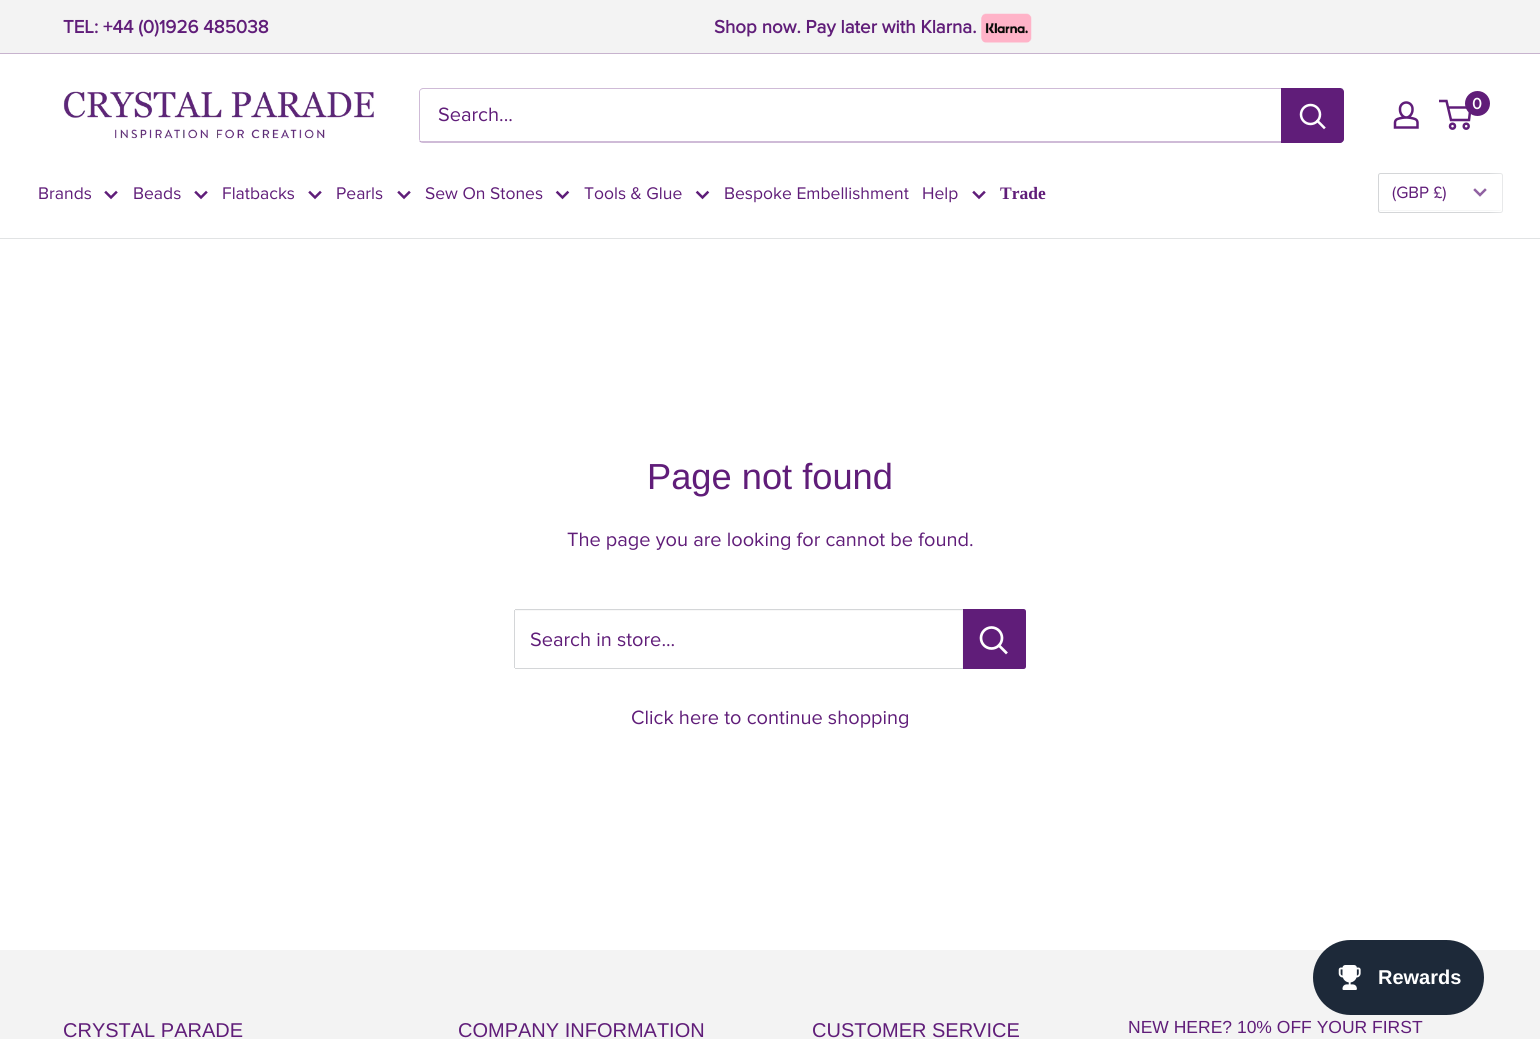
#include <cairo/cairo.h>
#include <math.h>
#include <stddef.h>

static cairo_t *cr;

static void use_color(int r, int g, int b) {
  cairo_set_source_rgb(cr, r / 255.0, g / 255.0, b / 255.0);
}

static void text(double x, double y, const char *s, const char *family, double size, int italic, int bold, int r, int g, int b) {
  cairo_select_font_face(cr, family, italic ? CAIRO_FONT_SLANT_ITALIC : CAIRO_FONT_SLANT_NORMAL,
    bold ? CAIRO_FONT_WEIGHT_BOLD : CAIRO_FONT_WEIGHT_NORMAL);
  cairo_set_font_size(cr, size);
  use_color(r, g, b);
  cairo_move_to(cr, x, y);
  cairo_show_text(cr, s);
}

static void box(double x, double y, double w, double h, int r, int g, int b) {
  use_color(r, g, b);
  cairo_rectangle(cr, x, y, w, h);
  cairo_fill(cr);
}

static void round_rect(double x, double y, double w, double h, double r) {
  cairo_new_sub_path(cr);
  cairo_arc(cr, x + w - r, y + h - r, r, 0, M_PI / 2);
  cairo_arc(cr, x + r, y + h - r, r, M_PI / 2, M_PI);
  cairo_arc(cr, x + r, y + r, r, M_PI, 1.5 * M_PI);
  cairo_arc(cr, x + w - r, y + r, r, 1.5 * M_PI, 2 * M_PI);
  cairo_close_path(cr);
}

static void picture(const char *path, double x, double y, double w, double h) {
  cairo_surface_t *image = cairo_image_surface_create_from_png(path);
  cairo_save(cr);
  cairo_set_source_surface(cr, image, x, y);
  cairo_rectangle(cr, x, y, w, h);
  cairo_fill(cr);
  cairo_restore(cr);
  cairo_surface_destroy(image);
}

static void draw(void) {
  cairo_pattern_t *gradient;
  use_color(255, 255, 255);
  cairo_paint(cr);
  box(0, 0, 1540, 53, 243, 243, 243);
  box(0, 53, 1540, 1, 199, 179, 206);
  picture("img_01.png", 981, 13, 51, 30);
  picture("img_02.png", 63, 91, 311, 48);
  picture("img_03.png", 1393, 101, 26, 28);
  cairo_arc(cr, 1452.5, 126.2, 2.5, 0, 2 * M_PI);
  use_color(96, 29, 121);
  cairo_set_line_width(cr, 2.5);
  cairo_stroke(cr);
  cairo_arc(cr, 1466.2, 126.2, 2.5, 0, 2 * M_PI);
  cairo_stroke(cr);
  cairo_new_path(cr);
  cairo_move_to(cr, 1448, 107.5);
  cairo_line_to(cr, 1470.5, 107.5);
  cairo_line_to(cr, 1469, 120);
  cairo_line_to(cr, 1451, 120);
  cairo_line_to(cr, 1446.5, 101);
  cairo_line_to(cr, 1439, 101);
  cairo_stroke(cr);
  cairo_arc(cr, 1477.5, 103.5, 12.5, 0, 2 * M_PI);
  cairo_fill(cr);
  use_color(207, 187, 215);
  cairo_new_path(cr);
  cairo_move_to(cr, 419, 141);
  cairo_curve_to(cr, 420, 142, 421, 143, 423, 143);
  cairo_line_to(cr, 1340, 143);
  cairo_curve_to(cr, 1342, 143, 1344, 141, 1344, 139);
  cairo_line_to(cr, 1344, 92);
  cairo_curve_to(cr, 1344, 90, 1343, 89, 1342, 88);
  cairo_line_to(cr, 1342, 130);
  cairo_curve_to(cr, 1342, 132, 1344, 141, 1339, 141);
  cairo_close_path(cr);
  cairo_fill(cr);
  cairo_set_source_rgba(cr, 0.376, 0.114, 0.475, 0.3);
  cairo_new_path(cr);
  cairo_move_to(cr, 424, 89);
  cairo_line_to(cr, 1341, 89);
  cairo_line_to(cr, 1343, 89);
  cairo_curve_to(cr, 1342, 89, 1341, 88, 1340, 88);
  cairo_line_to(cr, 423, 88);
  cairo_curve_to(cr, 421, 88, 419, 90, 419, 92);
  cairo_line_to(cr, 419, 139);
  cairo_curve_to(cr, 419, 140, 420, 142, 421, 142);
  cairo_line_to(cr, 420, 140);
  cairo_line_to(cr, 420, 91);
  cairo_curve_to(cr, 421, 89, 423, 89, 424, 89);
  cairo_close_path(cr);
  cairo_fill(cr);
  use_color(96, 29, 121);
  cairo_new_path(cr);
  cairo_move_to(cr, 1281, 88);
  cairo_line_to(cr, 1340, 88);
  cairo_curve_to(cr, 1342, 88, 1344, 90, 1344, 92);
  cairo_line_to(cr, 1344, 139);
  cairo_curve_to(cr, 1344, 141, 1342, 143, 1340, 143);
  cairo_line_to(cr, 1281, 143);
  cairo_close_path(cr);
  cairo_fill(cr);
  cairo_new_path(cr);
  cairo_move_to(cr, 1324, 127.5);
  cairo_line_to(cr, 1317.5, 121);
  use_color(255, 255, 255);
  cairo_set_line_cap(cr, CAIRO_LINE_CAP_SQUARE);
  cairo_stroke(cr);
  cairo_arc(cr, 1310.5, 114.5, 9.5, 0, 2 * M_PI);
  cairo_set_line_cap(cr, CAIRO_LINE_CAP_BUTT);
  cairo_stroke(cr);
  box(0, 238, 1540, 1, 225, 227, 228);
  cairo_new_path(cr);
  cairo_move_to(cr, 116, 192.5);
  cairo_line_to(cr, 111, 197.5);
  cairo_line_to(cr, 106, 192.5);
  use_color(95, 29, 121);
  cairo_set_line_cap(cr, CAIRO_LINE_CAP_SQUARE);
  cairo_stroke(cr);
  cairo_new_path(cr);
  cairo_move_to(cr, 206, 192.5);
  cairo_line_to(cr, 201, 197.5);
  cairo_line_to(cr, 196, 192.5);
  cairo_stroke(cr);
  cairo_new_path(cr);
  cairo_move_to(cr, 320, 192.5);
  cairo_line_to(cr, 315, 197.5);
  cairo_line_to(cr, 310, 192.5);
  cairo_stroke(cr);
  cairo_new_path(cr);
  cairo_move_to(cr, 409, 192.5);
  cairo_line_to(cr, 404, 197.5);
  cairo_line_to(cr, 399, 192.5);
  cairo_stroke(cr);
  cairo_new_path(cr);
  cairo_move_to(cr, 567.5, 192.5);
  cairo_line_to(cr, 562.5, 197.5);
  cairo_line_to(cr, 557.5, 192.5);
  cairo_stroke(cr);
  cairo_new_path(cr);
  cairo_move_to(cr, 707.5, 192.5);
  cairo_line_to(cr, 702.5, 197.5);
  cairo_line_to(cr, 697.5, 192.5);
  cairo_stroke(cr);
  cairo_new_path(cr);
  cairo_move_to(cr, 984, 192.5);
  cairo_line_to(cr, 979, 197.5);
  cairo_line_to(cr, 974, 192.5);
  cairo_stroke(cr);
  use_color(246, 247, 247);
  cairo_new_path(cr);
  cairo_move_to(cr, 1379, 209);
  cairo_curve_to(cr, 1379, 210, 1379, 211, 1380, 211);
  cairo_line_to(cr, 1500, 211);
  cairo_curve_to(cr, 1501, 211, 1501, 210, 1501, 209);
  cairo_line_to(cr, 1500, 210);
  cairo_line_to(cr, 1380, 210);
  cairo_close_path(cr);
  cairo_fill(cr);
  round_rect(1378.5, 173.5, 124, 39, 2);
  use_color(212, 214, 216);
  cairo_set_line_width(cr, 1);
  cairo_set_line_cap(cr, CAIRO_LINE_CAP_BUTT);
  cairo_stroke(cr);
  cairo_new_path(cr);
  cairo_move_to(cr, 1485, 190);
  cairo_line_to(cr, 1480, 195);
  cairo_line_to(cr, 1475, 190);
  use_color(144, 97, 161);
  cairo_set_line_width(cr, 2.5);
  cairo_set_line_cap(cr, CAIRO_LINE_CAP_SQUARE);
  cairo_stroke(cr);
  gradient = cairo_pattern_create_linear(1490, 194, 1540, 194);
  cairo_pattern_add_color_stop_rgba(gradient, 0, 1, 1, 1, 0.1);
  cairo_pattern_add_color_stop_rgba(gradient, 0.35, 1, 1, 1, 0.6);
  cairo_pattern_add_color_stop_rgba(gradient, 1, 1, 1, 1, 1);
  cairo_set_source(cr, gradient);
  cairo_pattern_destroy(gradient);
  cairo_rectangle(cr, 1490, 173, 13, 40);
  cairo_fill(cr);
  use_color(248, 248, 248);
  cairo_new_path(cr);
  cairo_move_to(cr, 516, 611);
  cairo_line_to(cr, 962, 611);
  cairo_line_to(cr, 962, 668);
  cairo_line_to(cr, 963, 668);
  cairo_line_to(cr, 963, 610);
  cairo_line_to(cr, 516, 610);
  cairo_line_to(cr, 515, 611);
  cairo_line_to(cr, 515, 612);
  cairo_close_path(cr);
  cairo_fill(cr);
  box(515, 609, 448, 1, 212, 214, 216);
  box(515, 668, 448, 1, 212, 214, 216);
  box(514, 610, 1, 58, 212, 214, 216);
  use_color(96, 29, 121);
  cairo_new_path(cr);
  cairo_move_to(cr, 963, 609);
  cairo_line_to(cr, 1023.5, 609);
  cairo_curve_to(cr, 1025, 609, 1026, 610, 1026, 611.5);
  cairo_line_to(cr, 1026, 666.5);
  cairo_curve_to(cr, 1026, 668, 1025, 669, 1023.5, 669);
  cairo_line_to(cr, 963, 669);
  cairo_close_path(cr);
  cairo_fill(cr);
  cairo_new_path(cr);
  cairo_move_to(cr, 1006, 652.5);
  cairo_line_to(cr, 999, 645.5);
  use_color(255, 255, 255);
  cairo_set_line_width(cr, 2.7);
  cairo_stroke(cr);
  cairo_arc(cr, 991.5, 638, 10.5, 0, 2 * M_PI);
  cairo_set_line_cap(cr, CAIRO_LINE_CAP_BUTT);
  cairo_stroke(cr);
  box(0, 950, 1540, 89, 243, 243, 243);
  use_color(29, 41, 57);
  round_rect(1313, 940, 171, 75, 37.5);
  cairo_fill(cr);
  picture("img_04.png", 1338, 965, 23, 25);
  text(63, 33, "TEL: +44 (0)1926 485038", "Proxima Nova", 18.75, 0, 1, 96, 29, 121);
  text(714, 33, "Shop now. Pay later with Klarna.", "Proxima Nova", 18.75, 0, 1, 96, 29, 121);
  text(1472, 109, "0", "Proxima Nova", 16, 0, 1, 255, 255, 255);
  text(438, 121, "Search...", "Proxima Nova", 20, 0, 0, 96, 29, 121);
  text(38, 199, "Brands", "Proxima Nova", 17.5, 0, 0, 96, 29, 121);
  text(133, 199, "Beads", "Proxima Nova", 17.5, 0, 0, 96, 29, 121);
  text(222, 199, "Flatbacks", "Proxima Nova", 17.5, 0, 0, 96, 29, 121);
  text(336, 199, "Pearls", "Proxima Nova", 17.5, 0, 0, 96, 29, 121);
  text(425, 199, "Sew On Stones", "Proxima Nova", 17.5, 0, 0, 96, 29, 121);
  text(584, 199, "Tools & Glue", "Proxima Nova", 17.5, 0, 0, 96, 29, 121);
  text(724, 199, "Bespoke Embellishment", "Proxima Nova", 17.5, 0, 0, 96, 29, 121);
  text(922, 199, "Help", "Proxima Nova", 17.5, 0, 0, 96, 29, 121);
  text(1000, 199, "Trade", "Liberation Serif", 17.5, 0, 1, 96, 29, 121);
  text(1392, 198, "(GBP £)", "Proxima Nova", 17, 0, 0, 96, 29, 121);
  text(647, 489, "Page not found", "Liberation Sans", 36.25, 0, 0, 96, 29, 121);
  text(567, 546, "The page you are looking for cannot be found.", "Proxima Nova", 20, 0, 0, 96, 29, 121);
  text(530, 646, "Search in store...", "Proxima Nova", 20, 0, 0, 96, 29, 121);
  text(631, 724, "Click here to continue shopping", "Proxima Nova", 20, 0, 0, 96, 29, 121);
  text(1378, 984, "Rewards", "Liberation Sans", 20, 0, 1, 255, 255, 255);
  text(63, 1037, "CRYSTAL PARADE", "Liberation Sans", 20, 0, 0, 96, 29, 121);
  text(458, 1037, "COMPANY INFORMATION", "Liberation Sans", 20, 0, 0, 96, 29, 121);
  text(812, 1037, "CUSTOMER SERVICE", "Liberation Sans", 20, 0, 0, 96, 29, 121);
  text(1128, 1033, "NEW HERE? 10% OFF YOUR FIRST", "Liberation Sans", 17.5, 0, 0, 96, 29, 121);
}

int main(void) {
  cairo_surface_t *surface = cairo_image_surface_create(CAIRO_FORMAT_RGB24, 1540, 1039);
  cr = cairo_create(surface);
  cairo_font_options_t *options = cairo_font_options_create();
  cairo_font_options_set_hint_metrics(options, CAIRO_HINT_METRICS_OFF);
  cairo_font_options_set_hint_style(options, CAIRO_HINT_STYLE_NONE);
  cairo_set_font_options(cr, options);
  cairo_set_miter_limit(cr, 4);
  draw();
  cairo_surface_write_to_png(surface, "out.png");
  cairo_font_options_destroy(options);
  cairo_destroy(cr);
  cairo_surface_destroy(surface);
  return 0;
}
